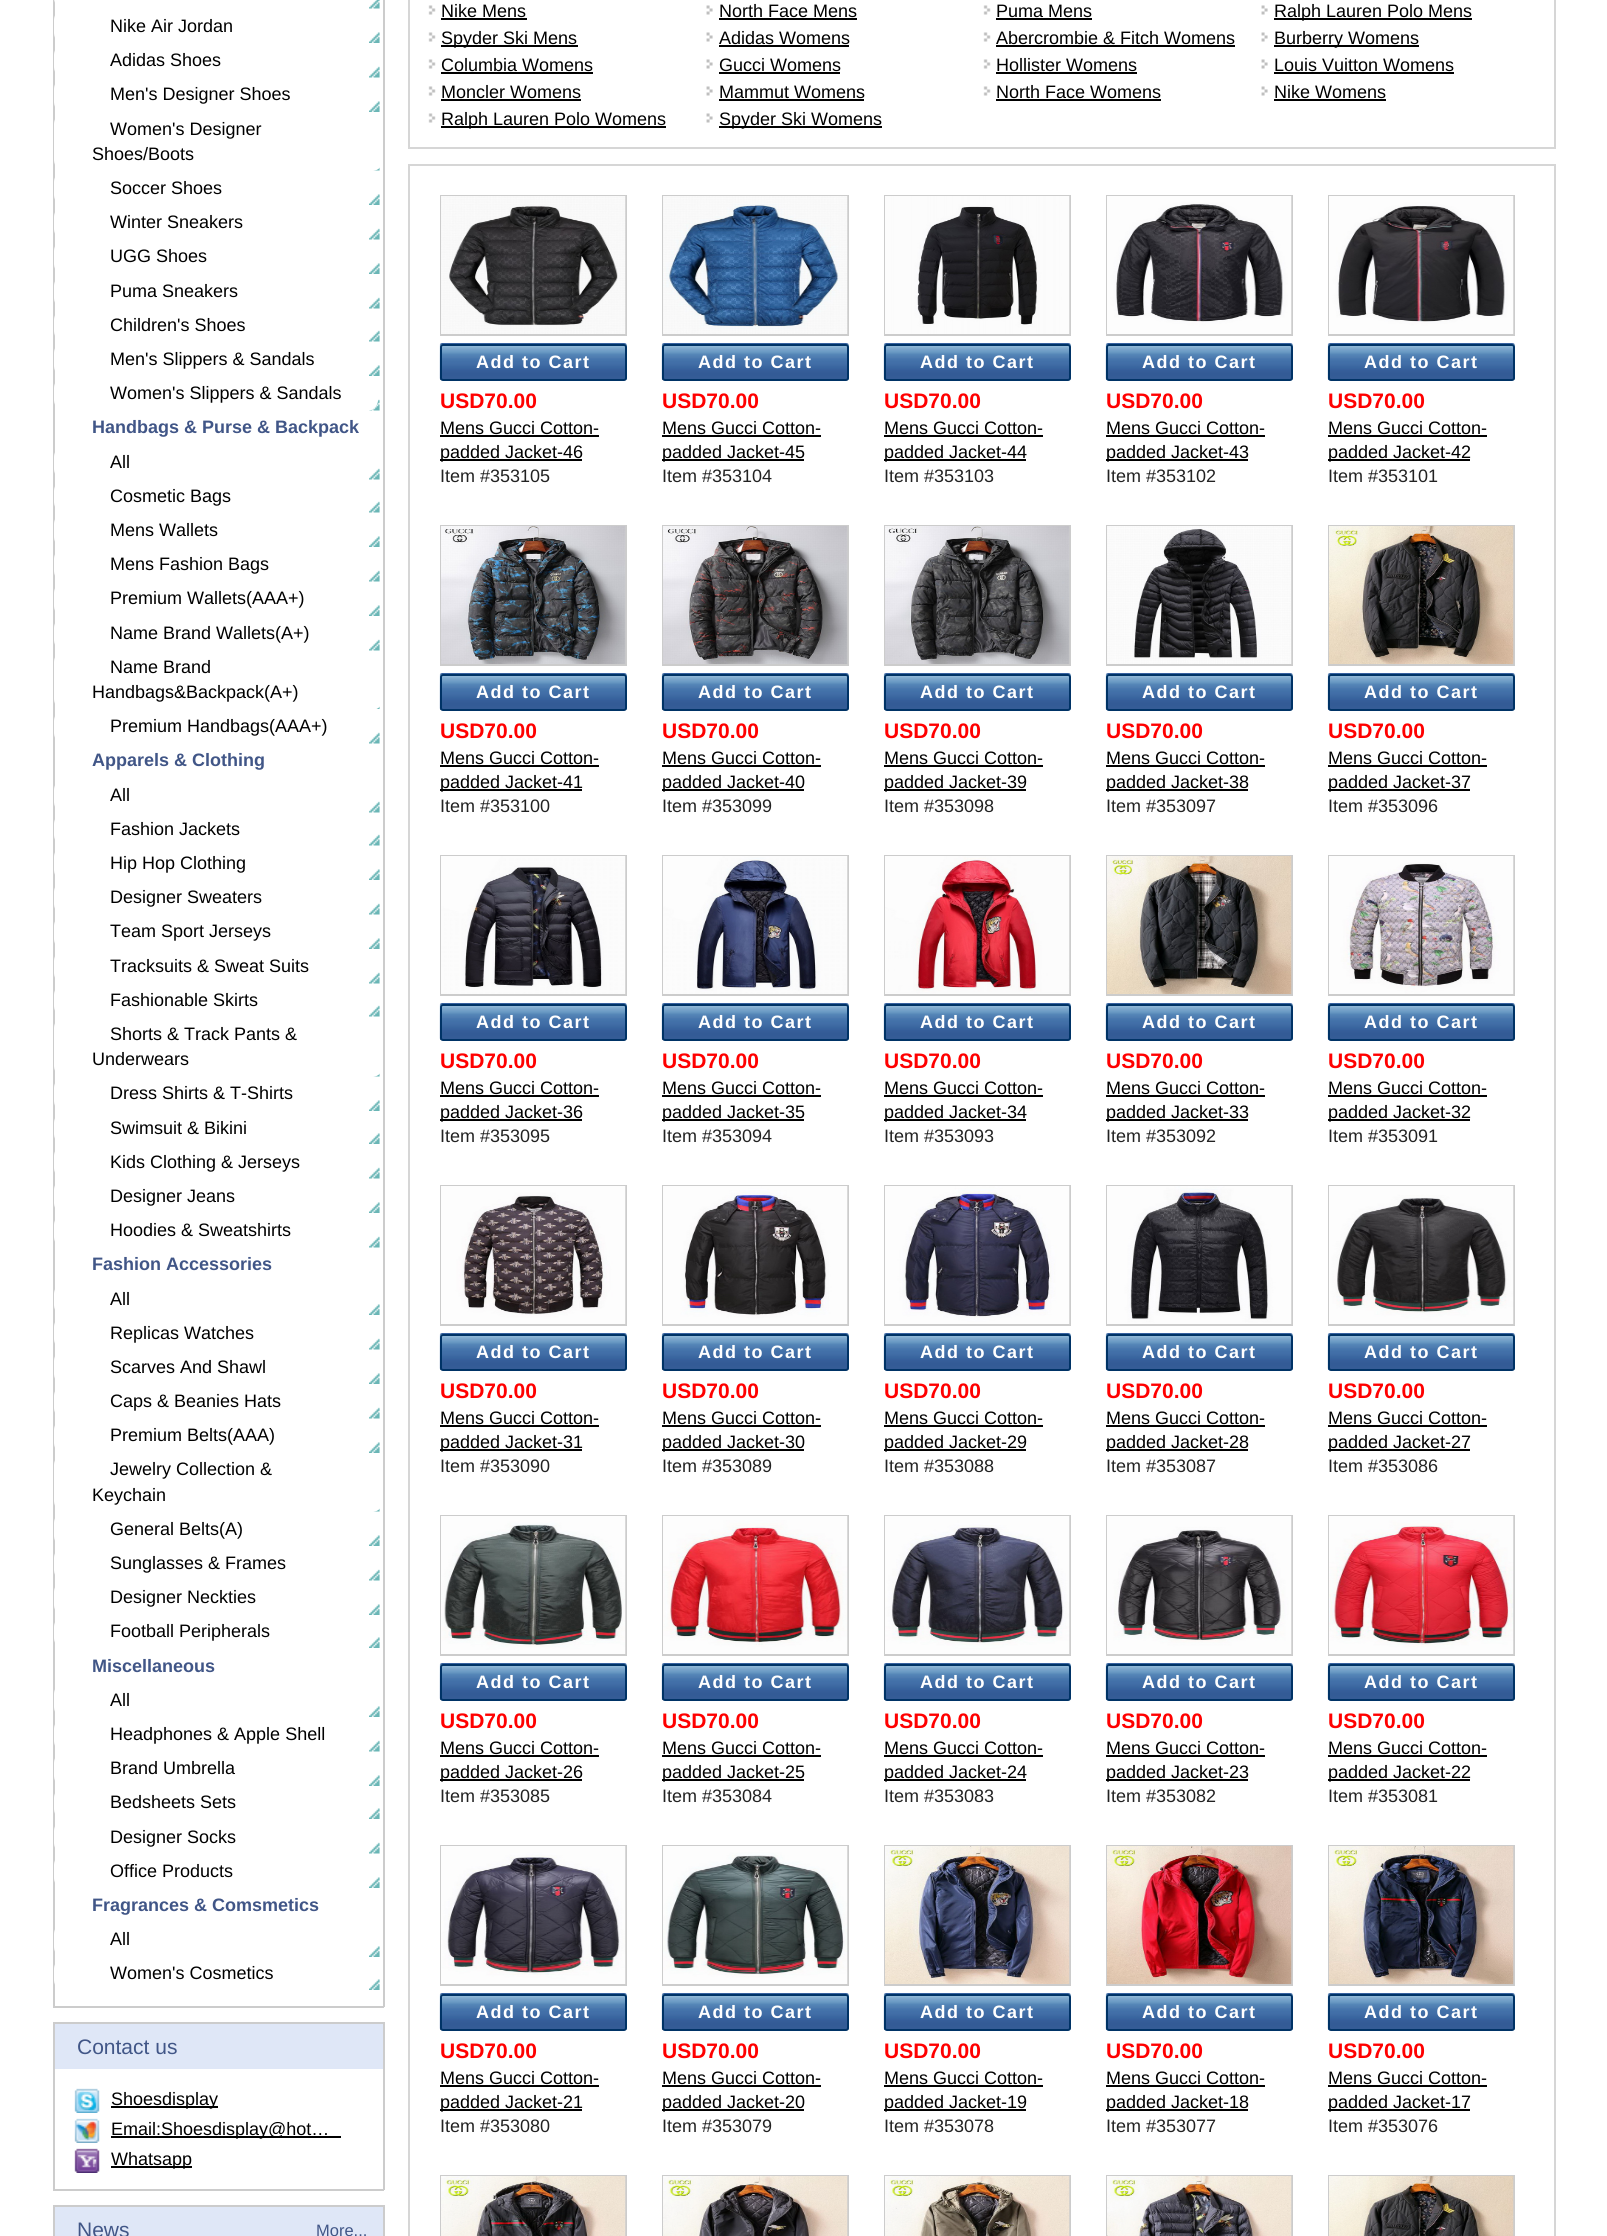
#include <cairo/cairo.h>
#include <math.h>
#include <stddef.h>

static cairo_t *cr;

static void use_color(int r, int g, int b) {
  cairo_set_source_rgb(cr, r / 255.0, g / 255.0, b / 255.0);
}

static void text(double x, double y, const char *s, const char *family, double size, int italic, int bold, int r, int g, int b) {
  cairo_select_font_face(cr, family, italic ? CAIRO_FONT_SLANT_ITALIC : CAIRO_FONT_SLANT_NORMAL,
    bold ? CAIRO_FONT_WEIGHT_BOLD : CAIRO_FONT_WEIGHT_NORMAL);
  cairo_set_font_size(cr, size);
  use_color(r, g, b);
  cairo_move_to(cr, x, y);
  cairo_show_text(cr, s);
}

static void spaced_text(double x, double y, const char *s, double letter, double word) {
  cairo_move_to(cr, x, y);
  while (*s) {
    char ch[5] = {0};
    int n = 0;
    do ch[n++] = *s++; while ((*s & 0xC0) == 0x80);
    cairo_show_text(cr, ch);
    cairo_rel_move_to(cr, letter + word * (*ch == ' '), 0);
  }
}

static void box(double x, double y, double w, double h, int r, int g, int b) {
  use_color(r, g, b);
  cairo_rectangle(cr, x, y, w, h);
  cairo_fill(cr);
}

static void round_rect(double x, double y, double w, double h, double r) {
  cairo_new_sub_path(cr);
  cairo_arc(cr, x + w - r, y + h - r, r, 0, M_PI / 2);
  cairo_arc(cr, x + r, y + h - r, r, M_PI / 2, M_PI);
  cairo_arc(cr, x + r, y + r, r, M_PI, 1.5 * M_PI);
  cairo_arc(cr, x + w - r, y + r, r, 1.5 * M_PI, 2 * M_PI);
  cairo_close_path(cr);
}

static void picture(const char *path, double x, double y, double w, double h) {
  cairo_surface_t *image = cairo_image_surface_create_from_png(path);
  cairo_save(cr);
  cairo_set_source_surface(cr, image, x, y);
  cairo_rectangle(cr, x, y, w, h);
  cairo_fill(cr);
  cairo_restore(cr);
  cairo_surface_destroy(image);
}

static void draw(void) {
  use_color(255, 255, 255);
  cairo_paint(cr);
  box(383, 0, 2, 2007, 204, 204, 204);
  box(53, 2006, 331, 2, 204, 204, 204);
  box(53, 0, 2, 2007, 204, 204, 204);
  picture("img_01.png", 369, 0, 11, 9);
  use_color(255, 255, 255);
  round_rect(54, -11, 185, 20, 11);
  cairo_fill(cr);
  picture("img_02.png", 369, 32, 11, 11);
  round_rect(54, 9, 216, 35, 11);
  cairo_fill(cr);
  picture("img_03.png", 369, 66, 11, 12);
  round_rect(54, 44, 204, 34, 11);
  cairo_fill(cr);
  picture("img_02.png", 369, 101, 11, 11);
  round_rect(54, 78, 273, 35, 11);
  cairo_fill(cr);
  picture("img_04.png", 372, 167, 8, 4);
  round_rect(54, 113, 329, 58, 11);
  cairo_fill(cr);
  picture("img_02.png", 369, 194, 11, 11);
  round_rect(54, 171, 206, 35, 11);
  cairo_fill(cr);
  picture("img_03.png", 369, 228, 11, 12);
  round_rect(54, 206, 227, 34, 11);
  cairo_fill(cr);
  picture("img_02.png", 369, 263, 11, 11);
  round_rect(54, 240, 191, 35, 11);
  cairo_fill(cr);
  picture("img_03.png", 369, 297, 11, 12);
  round_rect(54, 275, 221, 34, 11);
  cairo_fill(cr);
  picture("img_03.png", 369, 330, 11, 12);
  round_rect(54, 309, 228, 33, 11);
  cairo_fill(cr);
  picture("img_02.png", 369, 365, 11, 11);
  round_rect(54, 342, 297, 35, 11);
  cairo_fill(cr);
  picture("img_03.png", 369, 399, 11, 12);
  round_rect(54, 377, 324, 34, 11);
  cairo_fill(cr);
  picture("img_03.png", 369, 468, 11, 12);
  round_rect(54, 446, 113, 34, 11);
  cairo_fill(cr);
  picture("img_03.png", 369, 501, 11, 12);
  round_rect(54, 480, 215, 33, 11);
  cairo_fill(cr);
  picture("img_02.png", 369, 536, 11, 11);
  round_rect(54, 513, 201, 35, 11);
  cairo_fill(cr);
  picture("img_03.png", 369, 570, 11, 12);
  round_rect(54, 548, 252, 34, 11);
  cairo_fill(cr);
  picture("img_02.png", 369, 605, 11, 11);
  round_rect(54, 582, 288, 35, 11);
  cairo_fill(cr);
  picture("img_03.png", 369, 639, 11, 12);
  round_rect(54, 617, 293, 34, 11);
  cairo_fill(cr);
  picture("img_05.png", 376, 706, 4, 3);
  round_rect(54, 651, 329, 59, 11);
  cairo_fill(cr);
  picture("img_03.png", 369, 732, 11, 12);
  round_rect(54, 710, 311, 34, 11);
  cairo_fill(cr);
  picture("img_03.png", 369, 801, 11, 12);
  round_rect(54, 779, 113, 34, 11);
  cairo_fill(cr);
  picture("img_03.png", 369, 834, 11, 12);
  round_rect(54, 813, 224, 33, 11);
  cairo_fill(cr);
  picture("img_02.png", 369, 869, 11, 11);
  round_rect(54, 846, 230, 35, 11);
  cairo_fill(cr);
  picture("img_03.png", 369, 903, 11, 12);
  round_rect(54, 881, 245, 34, 11);
  cairo_fill(cr);
  picture("img_02.png", 369, 938, 11, 11);
  round_rect(54, 915, 254, 35, 11);
  cairo_fill(cr);
  picture("img_03.png", 369, 972, 11, 12);
  round_rect(54, 950, 293, 34, 11);
  cairo_fill(cr);
  picture("img_03.png", 369, 1005, 11, 12);
  round_rect(54, 984, 242, 33, 11);
  cairo_fill(cr);
  picture("img_04.png", 372, 1073, 8, 4);
  round_rect(54, 1017, 329, 60, 11);
  cairo_fill(cr);
  picture("img_02.png", 369, 1100, 11, 11);
  round_rect(54, 1077, 276, 35, 11);
  cairo_fill(cr);
  picture("img_02.png", 369, 1133, 11, 11);
  round_rect(54, 1112, 230, 33, 11);
  cairo_fill(cr);
  picture("img_03.png", 369, 1167, 11, 12);
  round_rect(54, 1145, 284, 34, 11);
  cairo_fill(cr);
  picture("img_02.png", 369, 1202, 11, 11);
  round_rect(54, 1179, 218, 35, 11);
  cairo_fill(cr);
  picture("img_03.png", 369, 1236, 11, 12);
  round_rect(54, 1214, 275, 34, 11);
  cairo_fill(cr);
  picture("img_02.png", 369, 1304, 11, 11);
  round_rect(54, 1283, 113, 33, 11);
  cairo_fill(cr);
  picture("img_03.png", 369, 1338, 11, 12);
  round_rect(54, 1316, 237, 34, 11);
  cairo_fill(cr);
  picture("img_02.png", 369, 1373, 11, 11);
  round_rect(54, 1350, 249, 35, 11);
  cairo_fill(cr);
  picture("img_03.png", 369, 1407, 11, 12);
  round_rect(54, 1385, 264, 34, 11);
  cairo_fill(cr);
  picture("img_02.png", 369, 1442, 11, 11);
  round_rect(54, 1419, 258, 35, 11);
  cairo_fill(cr);
  picture("img_04.png", 372, 1508, 8, 4);
  round_rect(54, 1454, 329, 58, 11);
  cairo_fill(cr);
  picture("img_02.png", 369, 1535, 11, 11);
  round_rect(54, 1512, 227, 35, 11);
  cairo_fill(cr);
  picture("img_03.png", 369, 1569, 11, 12);
  round_rect(54, 1547, 269, 34, 11);
  cairo_fill(cr);
  picture("img_02.png", 369, 1604, 11, 11);
  round_rect(54, 1581, 239, 35, 11);
  cairo_fill(cr);
  picture("img_02.png", 369, 1637, 11, 11);
  round_rect(54, 1616, 254, 33, 11);
  cairo_fill(cr);
  picture("img_02.png", 369, 1706, 11, 11);
  round_rect(54, 1683, 113, 35, 11);
  cairo_fill(cr);
  picture("img_03.png", 369, 1740, 11, 12);
  round_rect(54, 1718, 308, 34, 11);
  cairo_fill(cr);
  picture("img_02.png", 369, 1775, 11, 11);
  round_rect(54, 1752, 218, 35, 11);
  cairo_fill(cr);
  picture("img_02.png", 369, 1808, 11, 11);
  round_rect(54, 1787, 219, 33, 11);
  cairo_fill(cr);
  picture("img_03.png", 369, 1842, 11, 12);
  round_rect(54, 1820, 219, 34, 11);
  cairo_fill(cr);
  picture("img_02.png", 369, 1877, 11, 11);
  round_rect(54, 1854, 216, 35, 11);
  cairo_fill(cr);
  picture("img_02.png", 369, 1946, 11, 11);
  round_rect(54, 1923, 113, 35, 11);
  cairo_fill(cr);
  picture("img_02.png", 369, 1979, 11, 11);
  round_rect(54, 1958, 257, 33, 11);
  cairo_fill(cr);
  box(55, 2024, 328, 45, 223, 231, 247);
  box(53, 2022, 331, 2, 204, 204, 204);
  box(383, 2022, 2, 168, 204, 204, 204);
  box(53, 2022, 2, 47, 204, 204, 204);
  box(53, 2189, 331, 2, 204, 204, 204);
  box(53, 2069, 2, 121, 204, 204, 204);
  picture("img_06.png", 74, 2088, 26, 25);
  box(111, 2106, 107, 2, 0, 0, 0);
  picture("img_07.png", 74, 2118, 26, 25);
  box(111, 2136, 230, 2, 0, 0, 0);
  picture("img_08.png", 74, 2148, 26, 25);
  box(111, 2166, 81, 2, 0, 0, 0);
  box(55, 2207, 328, 29, 223, 231, 247);
  box(53, 2205, 331, 2, 204, 204, 204);
  box(383, 2205, 2, 31, 204, 204, 204);
  box(53, 2205, 2, 31, 204, 204, 204);
  cairo_rectangle(cr, 409, -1, 1146, 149);
  use_color(214, 214, 214);
  cairo_stroke(cr);
  picture("img_09.png", 428, 5, 8, 10);
  box(441, 18, 86, 2, 0, 0, 0);
  picture("img_10.png", 706, 5, 7, 10);
  box(719, 18, 138, 2, 0, 0, 0);
  picture("img_09.png", 983, 5, 8, 10);
  box(996, 18, 96, 2, 0, 0, 0);
  picture("img_10.png", 1261, 5, 7, 10);
  box(1274, 18, 198, 2, 0, 0, 0);
  picture("img_09.png", 428, 32, 8, 10);
  box(441, 45, 137, 2, 0, 0, 0);
  picture("img_10.png", 706, 32, 7, 10);
  box(719, 45, 130, 2, 0, 0, 0);
  picture("img_09.png", 983, 32, 8, 10);
  box(996, 45, 239, 2, 0, 0, 0);
  picture("img_10.png", 1261, 32, 7, 10);
  box(1274, 45, 145, 2, 0, 0, 0);
  picture("img_09.png", 428, 59, 8, 10);
  box(441, 72, 152, 2, 0, 0, 0);
  picture("img_10.png", 706, 59, 7, 10);
  box(719, 72, 121, 2, 0, 0, 0);
  picture("img_09.png", 983, 59, 8, 10);
  box(996, 72, 141, 2, 0, 0, 0);
  picture("img_10.png", 1261, 59, 7, 10);
  box(1274, 72, 180, 2, 0, 0, 0);
  picture("img_09.png", 428, 86, 8, 10);
  box(441, 99, 140, 2, 0, 0, 0);
  picture("img_10.png", 706, 86, 7, 10);
  box(719, 99, 145, 2, 0, 0, 0);
  picture("img_09.png", 983, 86, 8, 10);
  box(996, 99, 165, 2, 0, 0, 0);
  picture("img_10.png", 1261, 86, 7, 10);
  box(1274, 99, 112, 2, 0, 0, 0);
  picture("img_09.png", 428, 113, 8, 10);
  box(441, 126, 225, 2, 0, 0, 0);
  picture("img_10.png", 706, 113, 7, 10);
  box(719, 126, 163, 2, 0, 0, 0);
  cairo_rectangle(cr, 409, 165, 1146, 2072);
  use_color(214, 214, 214);
  cairo_stroke(cr);
  cairo_rectangle(cr, 441, 196, 185, 139);
  use_color(204, 204, 204);
  cairo_stroke(cr);
  picture("img_11.png", 441, 196, 185, 138);
  picture("img_12.png", 439, 343, 188, 38);
  round_rect(441, 345, 185, 35, 2);
  use_color(0, 51, 102);
  cairo_stroke(cr);
  box(440, 435, 159, 2, 0, 0, 0);
  box(440, 459, 142, 2, 0, 0, 0);
  cairo_rectangle(cr, 663, 196, 185, 139);
  use_color(204, 204, 204);
  cairo_stroke(cr);
  picture("img_13.png", 663, 196, 185, 138);
  picture("img_14.png", 661, 343, 188, 38);
  round_rect(663, 345, 185, 35, 2);
  use_color(0, 51, 102);
  cairo_stroke(cr);
  box(662, 435, 159, 2, 0, 0, 0);
  box(662, 459, 142, 2, 0, 0, 0);
  cairo_rectangle(cr, 885, 196, 185, 139);
  use_color(204, 204, 204);
  cairo_stroke(cr);
  picture("img_15.png", 885, 196, 185, 138);
  picture("img_16.png", 883, 343, 188, 38);
  round_rect(885, 345, 185, 35, 2);
  use_color(0, 51, 102);
  cairo_stroke(cr);
  box(884, 435, 159, 2, 0, 0, 0);
  box(884, 459, 142, 2, 0, 0, 0);
  cairo_rectangle(cr, 1107, 196, 185, 139);
  use_color(204, 204, 204);
  cairo_stroke(cr);
  picture("img_17.png", 1107, 196, 185, 138);
  picture("img_18.png", 1105, 343, 188, 38);
  round_rect(1107, 345, 185, 35, 2);
  use_color(0, 51, 102);
  cairo_stroke(cr);
  box(1106, 435, 159, 2, 0, 0, 0);
  box(1106, 459, 142, 2, 0, 0, 0);
  cairo_rectangle(cr, 1329, 196, 185, 139);
  use_color(204, 204, 204);
  cairo_stroke(cr);
  picture("img_19.png", 1329, 196, 185, 138);
  picture("img_20.png", 1327, 343, 188, 38);
  round_rect(1329, 345, 185, 35, 2);
  use_color(0, 51, 102);
  cairo_stroke(cr);
  box(1328, 435, 159, 2, 0, 0, 0);
  box(1328, 459, 142, 2, 0, 0, 0);
  cairo_rectangle(cr, 441, 526, 185, 139);
  use_color(204, 204, 204);
  cairo_stroke(cr);
  picture("img_21.png", 441, 526, 185, 138);
  picture("img_22.png", 439, 673, 188, 38);
  round_rect(441, 675, 185, 35, 2);
  use_color(0, 51, 102);
  cairo_stroke(cr);
  box(440, 765, 159, 2, 0, 0, 0);
  box(440, 789, 142, 2, 0, 0, 0);
  cairo_rectangle(cr, 663, 526, 185, 139);
  use_color(204, 204, 204);
  cairo_stroke(cr);
  picture("img_23.png", 663, 526, 185, 138);
  picture("img_24.png", 661, 673, 188, 38);
  round_rect(663, 675, 185, 35, 2);
  use_color(0, 51, 102);
  cairo_stroke(cr);
  box(662, 765, 159, 2, 0, 0, 0);
  box(662, 789, 142, 2, 0, 0, 0);
  cairo_rectangle(cr, 885, 526, 185, 139);
  use_color(204, 204, 204);
  cairo_stroke(cr);
  picture("img_25.png", 885, 526, 185, 138);
  picture("img_26.png", 883, 673, 188, 38);
  round_rect(885, 675, 185, 35, 2);
  use_color(0, 51, 102);
  cairo_stroke(cr);
  box(884, 765, 159, 2, 0, 0, 0);
  box(884, 789, 142, 2, 0, 0, 0);
  cairo_rectangle(cr, 1107, 526, 185, 139);
  use_color(204, 204, 204);
  cairo_stroke(cr);
  picture("img_27.png", 1107, 526, 185, 138);
  picture("img_28.png", 1105, 673, 188, 38);
  round_rect(1107, 675, 185, 35, 2);
  use_color(0, 51, 102);
  cairo_stroke(cr);
  box(1106, 765, 159, 2, 0, 0, 0);
  box(1106, 789, 142, 2, 0, 0, 0);
  cairo_rectangle(cr, 1329, 526, 185, 139);
  use_color(204, 204, 204);
  cairo_stroke(cr);
  picture("img_29.png", 1329, 526, 185, 138);
  picture("img_30.png", 1327, 673, 188, 38);
  round_rect(1329, 675, 185, 35, 2);
  use_color(0, 51, 102);
  cairo_stroke(cr);
  box(1328, 765, 159, 2, 0, 0, 0);
  box(1328, 789, 142, 2, 0, 0, 0);
  cairo_rectangle(cr, 441, 856, 185, 139);
  use_color(204, 204, 204);
  cairo_stroke(cr);
  picture("img_31.png", 441, 856, 185, 138);
  picture("img_32.png", 439, 1003, 188, 38);
  round_rect(441, 1005, 185, 35, 2);
  use_color(0, 51, 102);
  cairo_stroke(cr);
  box(440, 1095, 159, 2, 0, 0, 0);
  box(440, 1119, 142, 2, 0, 0, 0);
  cairo_rectangle(cr, 663, 856, 185, 139);
  use_color(204, 204, 204);
  cairo_stroke(cr);
  picture("img_33.png", 663, 856, 185, 138);
  picture("img_34.png", 661, 1003, 188, 38);
  round_rect(663, 1005, 185, 35, 2);
  use_color(0, 51, 102);
  cairo_stroke(cr);
  box(662, 1095, 159, 2, 0, 0, 0);
  box(662, 1119, 142, 2, 0, 0, 0);
  cairo_rectangle(cr, 885, 856, 185, 139);
  use_color(204, 204, 204);
  cairo_stroke(cr);
  picture("img_35.png", 885, 856, 185, 138);
  picture("img_36.png", 883, 1003, 188, 38);
  round_rect(885, 1005, 185, 35, 2);
  use_color(0, 51, 102);
  cairo_stroke(cr);
  box(884, 1095, 159, 2, 0, 0, 0);
  box(884, 1119, 142, 2, 0, 0, 0);
  cairo_rectangle(cr, 1107, 856, 185, 139);
  use_color(204, 204, 204);
  cairo_stroke(cr);
  picture("img_37.png", 1107, 856, 185, 138);
  picture("img_38.png", 1105, 1003, 188, 38);
  round_rect(1107, 1005, 185, 35, 2);
  use_color(0, 51, 102);
  cairo_stroke(cr);
  box(1106, 1095, 159, 2, 0, 0, 0);
  box(1106, 1119, 142, 2, 0, 0, 0);
  cairo_rectangle(cr, 1329, 856, 185, 139);
  use_color(204, 204, 204);
  cairo_stroke(cr);
  picture("img_39.png", 1329, 856, 185, 138);
  picture("img_40.png", 1327, 1003, 188, 38);
  round_rect(1329, 1005, 185, 35, 2);
  use_color(0, 51, 102);
  cairo_stroke(cr);
  box(1328, 1095, 159, 2, 0, 0, 0);
  box(1328, 1119, 142, 2, 0, 0, 0);
  cairo_rectangle(cr, 441, 1186, 185, 139);
  use_color(204, 204, 204);
  cairo_stroke(cr);
  picture("img_41.png", 441, 1186, 185, 138);
  picture("img_42.png", 439, 1333, 188, 38);
  round_rect(441, 1335, 185, 35, 2);
  use_color(0, 51, 102);
  cairo_stroke(cr);
  box(440, 1425, 159, 2, 0, 0, 0);
  box(440, 1449, 142, 2, 0, 0, 0);
  cairo_rectangle(cr, 663, 1186, 185, 139);
  use_color(204, 204, 204);
  cairo_stroke(cr);
  picture("img_43.png", 663, 1186, 185, 138);
  picture("img_44.png", 661, 1333, 188, 38);
  round_rect(663, 1335, 185, 35, 2);
  use_color(0, 51, 102);
  cairo_stroke(cr);
  box(662, 1425, 159, 2, 0, 0, 0);
  box(662, 1449, 142, 2, 0, 0, 0);
  cairo_rectangle(cr, 885, 1186, 185, 139);
  use_color(204, 204, 204);
  cairo_stroke(cr);
  picture("img_45.png", 885, 1186, 185, 138);
  picture("img_46.png", 883, 1333, 188, 38);
  round_rect(885, 1335, 185, 35, 2);
  use_color(0, 51, 102);
  cairo_stroke(cr);
  box(884, 1425, 159, 2, 0, 0, 0);
  box(884, 1449, 142, 2, 0, 0, 0);
  cairo_rectangle(cr, 1107, 1186, 185, 139);
  use_color(204, 204, 204);
  cairo_stroke(cr);
  picture("img_47.png", 1107, 1186, 185, 138);
  picture("img_48.png", 1105, 1333, 188, 38);
  round_rect(1107, 1335, 185, 35, 2);
  use_color(0, 51, 102);
  cairo_stroke(cr);
  box(1106, 1425, 159, 2, 0, 0, 0);
  box(1106, 1449, 142, 2, 0, 0, 0);
  cairo_rectangle(cr, 1329, 1186, 185, 139);
  use_color(204, 204, 204);
  cairo_stroke(cr);
  picture("img_49.png", 1329, 1186, 185, 138);
  picture("img_50.png", 1327, 1333, 188, 38);
  round_rect(1329, 1335, 185, 35, 2);
  use_color(0, 51, 102);
  cairo_stroke(cr);
  box(1328, 1425, 159, 2, 0, 0, 0);
  box(1328, 1449, 142, 2, 0, 0, 0);
  cairo_rectangle(cr, 441, 1516, 185, 139);
  use_color(204, 204, 204);
  cairo_stroke(cr);
  picture("img_51.png", 441, 1516, 185, 138);
  picture("img_52.png", 439, 1663, 188, 38);
  round_rect(441, 1665, 185, 35, 2);
  use_color(0, 51, 102);
  cairo_stroke(cr);
  box(440, 1755, 159, 2, 0, 0, 0);
  box(440, 1779, 142, 2, 0, 0, 0);
  cairo_rectangle(cr, 663, 1516, 185, 139);
  use_color(204, 204, 204);
  cairo_stroke(cr);
  picture("img_53.png", 663, 1516, 185, 138);
  picture("img_54.png", 661, 1663, 188, 38);
  round_rect(663, 1665, 185, 35, 2);
  use_color(0, 51, 102);
  cairo_stroke(cr);
  box(662, 1755, 159, 2, 0, 0, 0);
  box(662, 1779, 142, 2, 0, 0, 0);
  cairo_rectangle(cr, 885, 1516, 185, 139);
  use_color(204, 204, 204);
  cairo_stroke(cr);
  picture("img_55.png", 885, 1516, 185, 138);
  picture("img_56.png", 883, 1663, 188, 38);
  round_rect(885, 1665, 185, 35, 2);
  use_color(0, 51, 102);
  cairo_stroke(cr);
  box(884, 1755, 159, 2, 0, 0, 0);
  box(884, 1779, 142, 2, 0, 0, 0);
  cairo_rectangle(cr, 1107, 1516, 185, 139);
  use_color(204, 204, 204);
  cairo_stroke(cr);
  picture("img_57.png", 1107, 1516, 185, 138);
  picture("img_58.png", 1105, 1663, 188, 38);
  round_rect(1107, 1665, 185, 35, 2);
  use_color(0, 51, 102);
  cairo_stroke(cr);
  box(1106, 1755, 159, 2, 0, 0, 0);
  box(1106, 1779, 142, 2, 0, 0, 0);
  cairo_rectangle(cr, 1329, 1516, 185, 139);
  use_color(204, 204, 204);
  cairo_stroke(cr);
  picture("img_59.png", 1329, 1516, 185, 138);
  picture("img_60.png", 1327, 1663, 188, 38);
  round_rect(1329, 1665, 185, 35, 2);
  use_color(0, 51, 102);
  cairo_stroke(cr);
  box(1328, 1755, 159, 2, 0, 0, 0);
  box(1328, 1779, 142, 2, 0, 0, 0);
  cairo_rectangle(cr, 441, 1846, 185, 139);
  use_color(204, 204, 204);
  cairo_stroke(cr);
  picture("img_61.png", 441, 1846, 185, 138);
  picture("img_62.png", 439, 1993, 188, 38);
  round_rect(441, 1995, 185, 35, 2);
  use_color(0, 51, 102);
  cairo_stroke(cr);
  box(440, 2085, 159, 2, 0, 0, 0);
  box(440, 2109, 142, 2, 0, 0, 0);
  cairo_rectangle(cr, 663, 1846, 185, 139);
  use_color(204, 204, 204);
  cairo_stroke(cr);
  picture("img_63.png", 663, 1846, 185, 138);
  picture("img_64.png", 661, 1993, 188, 38);
  round_rect(663, 1995, 185, 35, 2);
  use_color(0, 51, 102);
  cairo_stroke(cr);
  box(662, 2085, 159, 2, 0, 0, 0);
  box(662, 2109, 142, 2, 0, 0, 0);
  cairo_rectangle(cr, 885, 1846, 185, 139);
  use_color(204, 204, 204);
  cairo_stroke(cr);
  picture("img_65.png", 885, 1846, 185, 138);
  picture("img_66.png", 883, 1993, 188, 38);
  round_rect(885, 1995, 185, 35, 2);
  use_color(0, 51, 102);
  cairo_stroke(cr);
  box(884, 2085, 159, 2, 0, 0, 0);
  box(884, 2109, 142, 2, 0, 0, 0);
  cairo_rectangle(cr, 1107, 1846, 185, 139);
  use_color(204, 204, 204);
  cairo_stroke(cr);
  picture("img_67.png", 1107, 1846, 185, 138);
  picture("img_68.png", 1105, 1993, 188, 38);
  round_rect(1107, 1995, 185, 35, 2);
  use_color(0, 51, 102);
  cairo_stroke(cr);
  box(1106, 2085, 159, 2, 0, 0, 0);
  box(1106, 2109, 142, 2, 0, 0, 0);
  cairo_rectangle(cr, 1329, 1846, 185, 139);
  use_color(204, 204, 204);
  cairo_stroke(cr);
  picture("img_69.png", 1329, 1846, 185, 138);
  picture("img_70.png", 1327, 1993, 188, 38);
  round_rect(1329, 1995, 185, 35, 2);
  use_color(0, 51, 102);
  cairo_stroke(cr);
  box(1328, 2085, 159, 2, 0, 0, 0);
  box(1328, 2109, 142, 2, 0, 0, 0);
  cairo_rectangle(cr, 441, 2176, 185, 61);
  use_color(204, 204, 204);
  cairo_stroke(cr);
  picture("img_71.png", 441, 2176, 185, 60);
  cairo_rectangle(cr, 663, 2176, 185, 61);
  cairo_stroke(cr);
  picture("img_72.png", 663, 2176, 185, 60);
  cairo_rectangle(cr, 885, 2176, 185, 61);
  cairo_stroke(cr);
  picture("img_73.png", 885, 2176, 185, 60);
  cairo_rectangle(cr, 1107, 2176, 185, 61);
  cairo_stroke(cr);
  picture("img_74.png", 1107, 2176, 185, 60);
  cairo_rectangle(cr, 1329, 2176, 185, 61);
  cairo_stroke(cr);
  picture("img_75.png", 1329, 2176, 185, 60);
  text(110, 32, "Nike Air Jordan", "Liberation Sans", 18, 0, 0, 0, 0, 0);
  text(110, 66, "Adidas Shoes", "Liberation Sans", 18, 0, 0, 0, 0, 0);
  text(110, 100, "Men's Designer Shoes", "Liberation Sans", 18, 0, 0, 0, 0, 0);
  text(110, 135, "Women's Designer", "Liberation Sans", 18, 0, 0, 0, 0, 0);
  text(92, 160, "Shoes/Boots", "Liberation Sans", 18, 0, 0, 0, 0, 0);
  text(110, 194, "Soccer Shoes", "Liberation Sans", 18, 0, 0, 0, 0, 0);
  text(110, 228, "Winter Sneakers", "Liberation Sans", 18, 0, 0, 0, 0, 0);
  text(110, 262, "UGG Shoes", "Liberation Sans", 18, 0, 0, 0, 0, 0);
  text(110, 297, "Puma Sneakers", "Liberation Sans", 18, 0, 0, 0, 0, 0);
  text(110, 331, "Children's Shoes", "Liberation Sans", 18, 0, 0, 0, 0, 0);
  text(110, 365, "Men's Slippers & Sandals", "Liberation Sans", 18, 0, 0, 0, 0, 0);
  text(110, 399, "Women's Slippers & Sandals", "Liberation Sans", 18, 0, 0, 0, 0, 0);
  text(92, 433, "Handbags & Purse & Backpack", "Liberation Sans", 18, 0, 1, 65, 86, 135);
  text(110, 468, "All", "Liberation Sans", 18, 0, 0, 0, 0, 0);
  text(110, 502, "Cosmetic Bags", "Liberation Sans", 18, 0, 0, 0, 0, 0);
  text(110, 536, "Mens Wallets", "Liberation Sans", 18, 0, 0, 0, 0, 0);
  text(110, 570, "Mens Fashion Bags", "Liberation Sans", 18, 0, 0, 0, 0, 0);
  text(110, 604, "Premium Wallets(AAA+)", "Liberation Sans", 18, 0, 0, 0, 0, 0);
  text(110, 639, "Name Brand Wallets(A+)", "Liberation Sans", 18, 0, 0, 0, 0, 0);
  text(110, 673, "Name Brand", "Liberation Sans", 18, 0, 0, 0, 0, 0);
  text(92, 698, "Handbags&Backpack(A+)", "Liberation Sans", 18, 0, 0, 0, 0, 0);
  text(110, 732, "Premium Handbags(AAA+)", "Liberation Sans", 18, 0, 0, 0, 0, 0);
  text(92, 766, "Apparels & Clothing", "Liberation Sans", 18, 0, 1, 65, 86, 135);
  text(110, 801, "All", "Liberation Sans", 18, 0, 0, 0, 0, 0);
  text(110, 835, "Fashion Jackets", "Liberation Sans", 18, 0, 0, 0, 0, 0);
  text(110, 869, "Hip Hop Clothing", "Liberation Sans", 18, 0, 0, 0, 0, 0);
  text(110, 903, "Designer Sweaters", "Liberation Sans", 18, 0, 0, 0, 0, 0);
  text(110, 937, "Team Sport Jerseys", "Liberation Sans", 18, 0, 0, 0, 0, 0);
  text(110, 972, "Tracksuits & Sweat Suits", "Liberation Sans", 18, 0, 0, 0, 0, 0);
  text(110, 1006, "Fashionable Skirts", "Liberation Sans", 18, 0, 0, 0, 0, 0);
  text(110, 1040, "Shorts & Track Pants &", "Liberation Sans", 18, 0, 0, 0, 0, 0);
  text(92, 1065, "Underwears", "Liberation Sans", 18, 0, 0, 0, 0, 0);
  text(110, 1099, "Dress Shirts & T-Shirts", "Liberation Sans", 18, 0, 0, 0, 0, 0);
  text(110, 1134, "Swimsuit & Bikini", "Liberation Sans", 18, 0, 0, 0, 0, 0);
  text(110, 1168, "Kids Clothing & Jerseys", "Liberation Sans", 18, 0, 0, 0, 0, 0);
  text(110, 1202, "Designer Jeans", "Liberation Sans", 18, 0, 0, 0, 0, 0);
  text(110, 1236, "Hoodies & Sweatshirts", "Liberation Sans", 18, 0, 0, 0, 0, 0);
  text(92, 1270, "Fashion Accessories", "Liberation Sans", 18, 0, 1, 65, 86, 135);
  text(110, 1305, "All", "Liberation Sans", 18, 0, 0, 0, 0, 0);
  text(110, 1339, "Replicas Watches", "Liberation Sans", 18, 0, 0, 0, 0, 0);
  text(110, 1373, "Scarves And Shawl", "Liberation Sans", 18, 0, 0, 0, 0, 0);
  text(110, 1407, "Caps & Beanies Hats", "Liberation Sans", 18, 0, 0, 0, 0, 0);
  text(110, 1441, "Premium Belts(AAA)", "Liberation Sans", 18, 0, 0, 0, 0, 0);
  text(110, 1475, "Jewelry Collection &", "Liberation Sans", 18, 0, 0, 0, 0, 0);
  text(92, 1501, "Keychain", "Liberation Sans", 18, 0, 0, 0, 0, 0);
  text(110, 1535, "General Belts(A)", "Liberation Sans", 18, 0, 0, 0, 0, 0);
  text(110, 1569, "Sunglasses & Frames", "Liberation Sans", 18, 0, 0, 0, 0, 0);
  text(110, 1603, "Designer Neckties", "Liberation Sans", 18, 0, 0, 0, 0, 0);
  text(110, 1637, "Football Peripherals", "Liberation Sans", 18, 0, 0, 0, 0, 0);
  text(92, 1672, "Miscellaneous", "Liberation Sans", 18, 0, 1, 65, 86, 135);
  text(110, 1706, "All", "Liberation Sans", 18, 0, 0, 0, 0, 0);
  text(110, 1740, "Headphones & Apple Shell", "Liberation Sans", 18, 0, 0, 0, 0, 0);
  text(110, 1774, "Brand Umbrella", "Liberation Sans", 18, 0, 0, 0, 0, 0);
  text(110, 1808, "Bedsheets Sets", "Liberation Sans", 18, 0, 0, 0, 0, 0);
  text(110, 1843, "Designer Socks", "Liberation Sans", 18, 0, 0, 0, 0, 0);
  text(110, 1877, "Office Products", "Liberation Sans", 18, 0, 0, 0, 0, 0);
  text(92, 1911, "Fragrances & Comsmetics", "Liberation Sans", 18, 0, 1, 65, 86, 135);
  text(110, 1945, "All", "Liberation Sans", 18, 0, 0, 0, 0, 0);
  text(110, 1979, "Women's Cosmetics", "Liberation Sans", 18, 0, 0, 0, 0, 0);
  text(77, 2054, "Contact us", "Liberation Sans", 21, 0, 0, 65, 86, 135);
  text(111, 2105, "Shoesdisplay", "Liberation Sans", 18, 0, 0, 0, 0, 0);
  text(111, 2135, "Email:Shoesdisplay@hot…", "Liberation Sans", 18, 0, 0, 0, 0, 0);
  text(111, 2165, "Whatsapp", "Liberation Sans", 18, 0, 0, 0, 0, 0);
  text(77, 2237, "News", "Liberation Sans", 21, 0, 0, 65, 86, 135);
  text(316, 2236, "More...", "Liberation Sans", 16.5, 0, 0, 65, 86, 135);
  text(441, 17, "Nike Mens", "Liberation Sans", 18, 0, 0, 0, 0, 0);
  text(719, 17, "North Face Mens", "Liberation Sans", 18, 0, 0, 0, 0, 0);
  text(996, 17, "Puma Mens", "Liberation Sans", 18, 0, 0, 0, 0, 0);
  text(1274, 17, "Ralph Lauren Polo Mens", "Liberation Sans", 18, 0, 0, 0, 0, 0);
  text(441, 44, "Spyder Ski Mens", "Liberation Sans", 18, 0, 0, 0, 0, 0);
  text(719, 44, "Adidas Womens", "Liberation Sans", 18, 0, 0, 0, 0, 0);
  text(996, 44, "Abercrombie & Fitch Womens", "Liberation Sans", 18, 0, 0, 0, 0, 0);
  text(1274, 44, "Burberry Womens", "Liberation Sans", 18, 0, 0, 0, 0, 0);
  text(441, 71, "Columbia Womens", "Liberation Sans", 18, 0, 0, 0, 0, 0);
  text(719, 71, "Gucci Womens", "Liberation Sans", 18, 0, 0, 0, 0, 0);
  text(996, 71, "Hollister Womens", "Liberation Sans", 18, 0, 0, 0, 0, 0);
  text(1274, 71, "Louis Vuitton Womens", "Liberation Sans", 18, 0, 0, 0, 0, 0);
  text(441, 98, "Moncler Womens", "Liberation Sans", 18, 0, 0, 0, 0, 0);
  text(719, 98, "Mammut Womens", "Liberation Sans", 18, 0, 0, 0, 0, 0);
  text(996, 98, "North Face Womens", "Liberation Sans", 18, 0, 0, 0, 0, 0);
  text(1274, 98, "Nike Womens", "Liberation Sans", 18, 0, 0, 0, 0, 0);
  text(441, 125, "Ralph Lauren Polo Womens", "Liberation Sans", 18, 0, 0, 0, 0, 0);
  text(719, 125, "Spyder Ski Womens", "Liberation Sans", 18, 0, 0, 0, 0, 0);
  cairo_select_font_face(cr, "Liberation Sans", CAIRO_FONT_SLANT_NORMAL, CAIRO_FONT_WEIGHT_BOLD);
  use_color(255, 255, 255);
  spaced_text(476, 368, "Add to Cart", 1.5, 0);
  text(440, 408, "USD70.00", "Liberation Sans", 21, 0, 1, 255, 0, 0);
  text(440, 434, "Mens Gucci Cotton-", "Liberation Sans", 18, 0, 0, 0, 0, 0);
  text(440, 458, "padded Jacket-46", "Liberation Sans", 18, 0, 0, 0, 0, 0);
  text(440, 482, "Item #353105", "Liberation Sans", 18, 0, 0, 34, 34, 34);
  cairo_select_font_face(cr, "Liberation Sans", CAIRO_FONT_SLANT_NORMAL, CAIRO_FONT_WEIGHT_BOLD);
  use_color(255, 255, 255);
  spaced_text(698, 368, "Add to Cart", 1.5, 0);
  text(662, 408, "USD70.00", "Liberation Sans", 21, 0, 1, 255, 0, 0);
  text(662, 434, "Mens Gucci Cotton-", "Liberation Sans", 18, 0, 0, 0, 0, 0);
  text(662, 458, "padded Jacket-45", "Liberation Sans", 18, 0, 0, 0, 0, 0);
  text(662, 482, "Item #353104", "Liberation Sans", 18, 0, 0, 34, 34, 34);
  cairo_select_font_face(cr, "Liberation Sans", CAIRO_FONT_SLANT_NORMAL, CAIRO_FONT_WEIGHT_BOLD);
  use_color(255, 255, 255);
  spaced_text(920, 368, "Add to Cart", 1.5, 0);
  text(884, 408, "USD70.00", "Liberation Sans", 21, 0, 1, 255, 0, 0);
  text(884, 434, "Mens Gucci Cotton-", "Liberation Sans", 18, 0, 0, 0, 0, 0);
  text(884, 458, "padded Jacket-44", "Liberation Sans", 18, 0, 0, 0, 0, 0);
  text(884, 482, "Item #353103", "Liberation Sans", 18, 0, 0, 34, 34, 34);
  cairo_select_font_face(cr, "Liberation Sans", CAIRO_FONT_SLANT_NORMAL, CAIRO_FONT_WEIGHT_BOLD);
  use_color(255, 255, 255);
  spaced_text(1142, 368, "Add to Cart", 1.5, 0);
  text(1106, 408, "USD70.00", "Liberation Sans", 21, 0, 1, 255, 0, 0);
  text(1106, 434, "Mens Gucci Cotton-", "Liberation Sans", 18, 0, 0, 0, 0, 0);
  text(1106, 458, "padded Jacket-43", "Liberation Sans", 18, 0, 0, 0, 0, 0);
  text(1106, 482, "Item #353102", "Liberation Sans", 18, 0, 0, 34, 34, 34);
  cairo_select_font_face(cr, "Liberation Sans", CAIRO_FONT_SLANT_NORMAL, CAIRO_FONT_WEIGHT_BOLD);
  use_color(255, 255, 255);
  spaced_text(1364, 368, "Add to Cart", 1.5, 0);
  text(1328, 408, "USD70.00", "Liberation Sans", 21, 0, 1, 255, 0, 0);
  text(1328, 434, "Mens Gucci Cotton-", "Liberation Sans", 18, 0, 0, 0, 0, 0);
  text(1328, 458, "padded Jacket-42", "Liberation Sans", 18, 0, 0, 0, 0, 0);
  text(1328, 482, "Item #353101", "Liberation Sans", 18, 0, 0, 34, 34, 34);
  cairo_select_font_face(cr, "Liberation Sans", CAIRO_FONT_SLANT_NORMAL, CAIRO_FONT_WEIGHT_BOLD);
  use_color(255, 255, 255);
  spaced_text(476, 698, "Add to Cart", 1.5, 0);
  text(440, 738, "USD70.00", "Liberation Sans", 21, 0, 1, 255, 0, 0);
  text(440, 764, "Mens Gucci Cotton-", "Liberation Sans", 18, 0, 0, 0, 0, 0);
  text(440, 788, "padded Jacket-41", "Liberation Sans", 18, 0, 0, 0, 0, 0);
  text(440, 812, "Item #353100", "Liberation Sans", 18, 0, 0, 34, 34, 34);
  cairo_select_font_face(cr, "Liberation Sans", CAIRO_FONT_SLANT_NORMAL, CAIRO_FONT_WEIGHT_BOLD);
  use_color(255, 255, 255);
  spaced_text(698, 698, "Add to Cart", 1.5, 0);
  text(662, 738, "USD70.00", "Liberation Sans", 21, 0, 1, 255, 0, 0);
  text(662, 764, "Mens Gucci Cotton-", "Liberation Sans", 18, 0, 0, 0, 0, 0);
  text(662, 788, "padded Jacket-40", "Liberation Sans", 18, 0, 0, 0, 0, 0);
  text(662, 812, "Item #353099", "Liberation Sans", 18, 0, 0, 34, 34, 34);
  cairo_select_font_face(cr, "Liberation Sans", CAIRO_FONT_SLANT_NORMAL, CAIRO_FONT_WEIGHT_BOLD);
  use_color(255, 255, 255);
  spaced_text(920, 698, "Add to Cart", 1.5, 0);
  text(884, 738, "USD70.00", "Liberation Sans", 21, 0, 1, 255, 0, 0);
  text(884, 764, "Mens Gucci Cotton-", "Liberation Sans", 18, 0, 0, 0, 0, 0);
  text(884, 788, "padded Jacket-39", "Liberation Sans", 18, 0, 0, 0, 0, 0);
  text(884, 812, "Item #353098", "Liberation Sans", 18, 0, 0, 34, 34, 34);
  cairo_select_font_face(cr, "Liberation Sans", CAIRO_FONT_SLANT_NORMAL, CAIRO_FONT_WEIGHT_BOLD);
  use_color(255, 255, 255);
  spaced_text(1142, 698, "Add to Cart", 1.5, 0);
  text(1106, 738, "USD70.00", "Liberation Sans", 21, 0, 1, 255, 0, 0);
  text(1106, 764, "Mens Gucci Cotton-", "Liberation Sans", 18, 0, 0, 0, 0, 0);
  text(1106, 788, "padded Jacket-38", "Liberation Sans", 18, 0, 0, 0, 0, 0);
  text(1106, 812, "Item #353097", "Liberation Sans", 18, 0, 0, 34, 34, 34);
  cairo_select_font_face(cr, "Liberation Sans", CAIRO_FONT_SLANT_NORMAL, CAIRO_FONT_WEIGHT_BOLD);
  use_color(255, 255, 255);
  spaced_text(1364, 698, "Add to Cart", 1.5, 0);
  text(1328, 738, "USD70.00", "Liberation Sans", 21, 0, 1, 255, 0, 0);
  text(1328, 764, "Mens Gucci Cotton-", "Liberation Sans", 18, 0, 0, 0, 0, 0);
  text(1328, 788, "padded Jacket-37", "Liberation Sans", 18, 0, 0, 0, 0, 0);
  text(1328, 812, "Item #353096", "Liberation Sans", 18, 0, 0, 34, 34, 34);
  cairo_select_font_face(cr, "Liberation Sans", CAIRO_FONT_SLANT_NORMAL, CAIRO_FONT_WEIGHT_BOLD);
  use_color(255, 255, 255);
  spaced_text(476, 1028, "Add to Cart", 1.5, 0);
  text(440, 1068, "USD70.00", "Liberation Sans", 21, 0, 1, 255, 0, 0);
  text(440, 1094, "Mens Gucci Cotton-", "Liberation Sans", 18, 0, 0, 0, 0, 0);
  text(440, 1118, "padded Jacket-36", "Liberation Sans", 18, 0, 0, 0, 0, 0);
  text(440, 1142, "Item #353095", "Liberation Sans", 18, 0, 0, 34, 34, 34);
  cairo_select_font_face(cr, "Liberation Sans", CAIRO_FONT_SLANT_NORMAL, CAIRO_FONT_WEIGHT_BOLD);
  use_color(255, 255, 255);
  spaced_text(698, 1028, "Add to Cart", 1.5, 0);
  text(662, 1068, "USD70.00", "Liberation Sans", 21, 0, 1, 255, 0, 0);
  text(662, 1094, "Mens Gucci Cotton-", "Liberation Sans", 18, 0, 0, 0, 0, 0);
  text(662, 1118, "padded Jacket-35", "Liberation Sans", 18, 0, 0, 0, 0, 0);
  text(662, 1142, "Item #353094", "Liberation Sans", 18, 0, 0, 34, 34, 34);
  cairo_select_font_face(cr, "Liberation Sans", CAIRO_FONT_SLANT_NORMAL, CAIRO_FONT_WEIGHT_BOLD);
  use_color(255, 255, 255);
  spaced_text(920, 1028, "Add to Cart", 1.5, 0);
  text(884, 1068, "USD70.00", "Liberation Sans", 21, 0, 1, 255, 0, 0);
  text(884, 1094, "Mens Gucci Cotton-", "Liberation Sans", 18, 0, 0, 0, 0, 0);
  text(884, 1118, "padded Jacket-34", "Liberation Sans", 18, 0, 0, 0, 0, 0);
  text(884, 1142, "Item #353093", "Liberation Sans", 18, 0, 0, 34, 34, 34);
  cairo_select_font_face(cr, "Liberation Sans", CAIRO_FONT_SLANT_NORMAL, CAIRO_FONT_WEIGHT_BOLD);
  use_color(255, 255, 255);
  spaced_text(1142, 1028, "Add to Cart", 1.5, 0);
  text(1106, 1068, "USD70.00", "Liberation Sans", 21, 0, 1, 255, 0, 0);
  text(1106, 1094, "Mens Gucci Cotton-", "Liberation Sans", 18, 0, 0, 0, 0, 0);
  text(1106, 1118, "padded Jacket-33", "Liberation Sans", 18, 0, 0, 0, 0, 0);
  text(1106, 1142, "Item #353092", "Liberation Sans", 18, 0, 0, 34, 34, 34);
  cairo_select_font_face(cr, "Liberation Sans", CAIRO_FONT_SLANT_NORMAL, CAIRO_FONT_WEIGHT_BOLD);
  use_color(255, 255, 255);
  spaced_text(1364, 1028, "Add to Cart", 1.5, 0);
  text(1328, 1068, "USD70.00", "Liberation Sans", 21, 0, 1, 255, 0, 0);
  text(1328, 1094, "Mens Gucci Cotton-", "Liberation Sans", 18, 0, 0, 0, 0, 0);
  text(1328, 1118, "padded Jacket-32", "Liberation Sans", 18, 0, 0, 0, 0, 0);
  text(1328, 1142, "Item #353091", "Liberation Sans", 18, 0, 0, 34, 34, 34);
  cairo_select_font_face(cr, "Liberation Sans", CAIRO_FONT_SLANT_NORMAL, CAIRO_FONT_WEIGHT_BOLD);
  use_color(255, 255, 255);
  spaced_text(476, 1358, "Add to Cart", 1.5, 0);
  text(440, 1398, "USD70.00", "Liberation Sans", 21, 0, 1, 255, 0, 0);
  text(440, 1424, "Mens Gucci Cotton-", "Liberation Sans", 18, 0, 0, 0, 0, 0);
  text(440, 1448, "padded Jacket-31", "Liberation Sans", 18, 0, 0, 0, 0, 0);
  text(440, 1472, "Item #353090", "Liberation Sans", 18, 0, 0, 34, 34, 34);
  cairo_select_font_face(cr, "Liberation Sans", CAIRO_FONT_SLANT_NORMAL, CAIRO_FONT_WEIGHT_BOLD);
  use_color(255, 255, 255);
  spaced_text(698, 1358, "Add to Cart", 1.5, 0);
  text(662, 1398, "USD70.00", "Liberation Sans", 21, 0, 1, 255, 0, 0);
  text(662, 1424, "Mens Gucci Cotton-", "Liberation Sans", 18, 0, 0, 0, 0, 0);
  text(662, 1448, "padded Jacket-30", "Liberation Sans", 18, 0, 0, 0, 0, 0);
  text(662, 1472, "Item #353089", "Liberation Sans", 18, 0, 0, 34, 34, 34);
  cairo_select_font_face(cr, "Liberation Sans", CAIRO_FONT_SLANT_NORMAL, CAIRO_FONT_WEIGHT_BOLD);
  use_color(255, 255, 255);
  spaced_text(920, 1358, "Add to Cart", 1.5, 0);
  text(884, 1398, "USD70.00", "Liberation Sans", 21, 0, 1, 255, 0, 0);
  text(884, 1424, "Mens Gucci Cotton-", "Liberation Sans", 18, 0, 0, 0, 0, 0);
  text(884, 1448, "padded Jacket-29", "Liberation Sans", 18, 0, 0, 0, 0, 0);
  text(884, 1472, "Item #353088", "Liberation Sans", 18, 0, 0, 34, 34, 34);
  cairo_select_font_face(cr, "Liberation Sans", CAIRO_FONT_SLANT_NORMAL, CAIRO_FONT_WEIGHT_BOLD);
  use_color(255, 255, 255);
  spaced_text(1142, 1358, "Add to Cart", 1.5, 0);
  text(1106, 1398, "USD70.00", "Liberation Sans", 21, 0, 1, 255, 0, 0);
  text(1106, 1424, "Mens Gucci Cotton-", "Liberation Sans", 18, 0, 0, 0, 0, 0);
  text(1106, 1448, "padded Jacket-28", "Liberation Sans", 18, 0, 0, 0, 0, 0);
  text(1106, 1472, "Item #353087", "Liberation Sans", 18, 0, 0, 34, 34, 34);
  cairo_select_font_face(cr, "Liberation Sans", CAIRO_FONT_SLANT_NORMAL, CAIRO_FONT_WEIGHT_BOLD);
  use_color(255, 255, 255);
  spaced_text(1364, 1358, "Add to Cart", 1.5, 0);
  text(1328, 1398, "USD70.00", "Liberation Sans", 21, 0, 1, 255, 0, 0);
  text(1328, 1424, "Mens Gucci Cotton-", "Liberation Sans", 18, 0, 0, 0, 0, 0);
  text(1328, 1448, "padded Jacket-27", "Liberation Sans", 18, 0, 0, 0, 0, 0);
  text(1328, 1472, "Item #353086", "Liberation Sans", 18, 0, 0, 34, 34, 34);
  cairo_select_font_face(cr, "Liberation Sans", CAIRO_FONT_SLANT_NORMAL, CAIRO_FONT_WEIGHT_BOLD);
  use_color(255, 255, 255);
  spaced_text(476, 1688, "Add to Cart", 1.5, 0);
  text(440, 1728, "USD70.00", "Liberation Sans", 21, 0, 1, 255, 0, 0);
  text(440, 1754, "Mens Gucci Cotton-", "Liberation Sans", 18, 0, 0, 0, 0, 0);
  text(440, 1778, "padded Jacket-26", "Liberation Sans", 18, 0, 0, 0, 0, 0);
  text(440, 1802, "Item #353085", "Liberation Sans", 18, 0, 0, 34, 34, 34);
  cairo_select_font_face(cr, "Liberation Sans", CAIRO_FONT_SLANT_NORMAL, CAIRO_FONT_WEIGHT_BOLD);
  use_color(255, 255, 255);
  spaced_text(698, 1688, "Add to Cart", 1.5, 0);
  text(662, 1728, "USD70.00", "Liberation Sans", 21, 0, 1, 255, 0, 0);
  text(662, 1754, "Mens Gucci Cotton-", "Liberation Sans", 18, 0, 0, 0, 0, 0);
  text(662, 1778, "padded Jacket-25", "Liberation Sans", 18, 0, 0, 0, 0, 0);
  text(662, 1802, "Item #353084", "Liberation Sans", 18, 0, 0, 34, 34, 34);
  cairo_select_font_face(cr, "Liberation Sans", CAIRO_FONT_SLANT_NORMAL, CAIRO_FONT_WEIGHT_BOLD);
  use_color(255, 255, 255);
  spaced_text(920, 1688, "Add to Cart", 1.5, 0);
  text(884, 1728, "USD70.00", "Liberation Sans", 21, 0, 1, 255, 0, 0);
  text(884, 1754, "Mens Gucci Cotton-", "Liberation Sans", 18, 0, 0, 0, 0, 0);
  text(884, 1778, "padded Jacket-24", "Liberation Sans", 18, 0, 0, 0, 0, 0);
  text(884, 1802, "Item #353083", "Liberation Sans", 18, 0, 0, 34, 34, 34);
  cairo_select_font_face(cr, "Liberation Sans", CAIRO_FONT_SLANT_NORMAL, CAIRO_FONT_WEIGHT_BOLD);
  use_color(255, 255, 255);
  spaced_text(1142, 1688, "Add to Cart", 1.5, 0);
  text(1106, 1728, "USD70.00", "Liberation Sans", 21, 0, 1, 255, 0, 0);
  text(1106, 1754, "Mens Gucci Cotton-", "Liberation Sans", 18, 0, 0, 0, 0, 0);
  text(1106, 1778, "padded Jacket-23", "Liberation Sans", 18, 0, 0, 0, 0, 0);
  text(1106, 1802, "Item #353082", "Liberation Sans", 18, 0, 0, 34, 34, 34);
  cairo_select_font_face(cr, "Liberation Sans", CAIRO_FONT_SLANT_NORMAL, CAIRO_FONT_WEIGHT_BOLD);
  use_color(255, 255, 255);
  spaced_text(1364, 1688, "Add to Cart", 1.5, 0);
  text(1328, 1728, "USD70.00", "Liberation Sans", 21, 0, 1, 255, 0, 0);
  text(1328, 1754, "Mens Gucci Cotton-", "Liberation Sans", 18, 0, 0, 0, 0, 0);
  text(1328, 1778, "padded Jacket-22", "Liberation Sans", 18, 0, 0, 0, 0, 0);
  text(1328, 1802, "Item #353081", "Liberation Sans", 18, 0, 0, 34, 34, 34);
  cairo_select_font_face(cr, "Liberation Sans", CAIRO_FONT_SLANT_NORMAL, CAIRO_FONT_WEIGHT_BOLD);
  use_color(255, 255, 255);
  spaced_text(476, 2018, "Add to Cart", 1.5, 0);
  text(440, 2058, "USD70.00", "Liberation Sans", 21, 0, 1, 255, 0, 0);
  text(440, 2084, "Mens Gucci Cotton-", "Liberation Sans", 18, 0, 0, 0, 0, 0);
  text(440, 2108, "padded Jacket-21", "Liberation Sans", 18, 0, 0, 0, 0, 0);
  text(440, 2132, "Item #353080", "Liberation Sans", 18, 0, 0, 34, 34, 34);
  cairo_select_font_face(cr, "Liberation Sans", CAIRO_FONT_SLANT_NORMAL, CAIRO_FONT_WEIGHT_BOLD);
  use_color(255, 255, 255);
  spaced_text(698, 2018, "Add to Cart", 1.5, 0);
  text(662, 2058, "USD70.00", "Liberation Sans", 21, 0, 1, 255, 0, 0);
  text(662, 2084, "Mens Gucci Cotton-", "Liberation Sans", 18, 0, 0, 0, 0, 0);
  text(662, 2108, "padded Jacket-20", "Liberation Sans", 18, 0, 0, 0, 0, 0);
  text(662, 2132, "Item #353079", "Liberation Sans", 18, 0, 0, 34, 34, 34);
  cairo_select_font_face(cr, "Liberation Sans", CAIRO_FONT_SLANT_NORMAL, CAIRO_FONT_WEIGHT_BOLD);
  use_color(255, 255, 255);
  spaced_text(920, 2018, "Add to Cart", 1.5, 0);
  text(884, 2058, "USD70.00", "Liberation Sans", 21, 0, 1, 255, 0, 0);
  text(884, 2084, "Mens Gucci Cotton-", "Liberation Sans", 18, 0, 0, 0, 0, 0);
  text(884, 2108, "padded Jacket-19", "Liberation Sans", 18, 0, 0, 0, 0, 0);
  text(884, 2132, "Item #353078", "Liberation Sans", 18, 0, 0, 34, 34, 34);
  cairo_select_font_face(cr, "Liberation Sans", CAIRO_FONT_SLANT_NORMAL, CAIRO_FONT_WEIGHT_BOLD);
  use_color(255, 255, 255);
  spaced_text(1142, 2018, "Add to Cart", 1.5, 0);
  text(1106, 2058, "USD70.00", "Liberation Sans", 21, 0, 1, 255, 0, 0);
  text(1106, 2084, "Mens Gucci Cotton-", "Liberation Sans", 18, 0, 0, 0, 0, 0);
  text(1106, 2108, "padded Jacket-18", "Liberation Sans", 18, 0, 0, 0, 0, 0);
  text(1106, 2132, "Item #353077", "Liberation Sans", 18, 0, 0, 34, 34, 34);
  cairo_select_font_face(cr, "Liberation Sans", CAIRO_FONT_SLANT_NORMAL, CAIRO_FONT_WEIGHT_BOLD);
  use_color(255, 255, 255);
  spaced_text(1364, 2018, "Add to Cart", 1.5, 0);
  text(1328, 2058, "USD70.00", "Liberation Sans", 21, 0, 1, 255, 0, 0);
  text(1328, 2084, "Mens Gucci Cotton-", "Liberation Sans", 18, 0, 0, 0, 0, 0);
  text(1328, 2108, "padded Jacket-17", "Liberation Sans", 18, 0, 0, 0, 0, 0);
  text(1328, 2132, "Item #353076", "Liberation Sans", 18, 0, 0, 34, 34, 34);
}

int main(void) {
  cairo_surface_t *surface = cairo_image_surface_create(CAIRO_FORMAT_RGB24, 1607, 2236);
  cr = cairo_create(surface);
  cairo_font_options_t *options = cairo_font_options_create();
  cairo_font_options_set_hint_metrics(options, CAIRO_HINT_METRICS_OFF);
  cairo_font_options_set_hint_style(options, CAIRO_HINT_STYLE_NONE);
  cairo_set_font_options(cr, options);
  cairo_set_miter_limit(cr, 4);
  draw();
  cairo_surface_write_to_png(surface, "out.png");
  cairo_font_options_destroy(options);
  cairo_destroy(cr);
  cairo_surface_destroy(surface);
  return 0;
}
